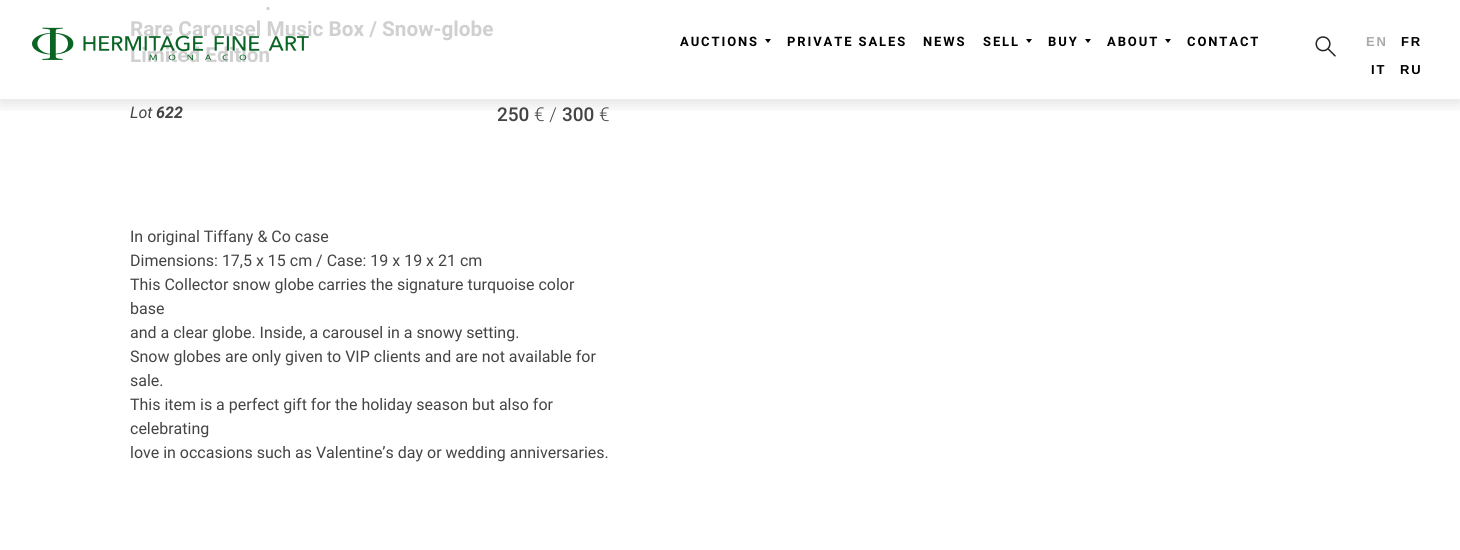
#include <cairo/cairo.h>
#include <math.h>
#include <stddef.h>

static cairo_t *cr;

static void use_color(int r, int g, int b) {
  cairo_set_source_rgb(cr, r / 255.0, g / 255.0, b / 255.0);
}

static void text(double x, double y, const char *s, const char *family, double size, int italic, int bold, int r, int g, int b) {
  cairo_select_font_face(cr, family, italic ? CAIRO_FONT_SLANT_ITALIC : CAIRO_FONT_SLANT_NORMAL,
    bold ? CAIRO_FONT_WEIGHT_BOLD : CAIRO_FONT_WEIGHT_NORMAL);
  cairo_set_font_size(cr, size);
  use_color(r, g, b);
  cairo_move_to(cr, x, y);
  cairo_show_text(cr, s);
}

static void spaced_text(double x, double y, const char *s, double letter, double word) {
  cairo_move_to(cr, x, y);
  while (*s) {
    char ch[5] = {0};
    int n = 0;
    do ch[n++] = *s++; while ((*s & 0xC0) == 0x80);
    cairo_show_text(cr, ch);
    cairo_rel_move_to(cr, letter + word * (*ch == ' '), 0);
  }
}

static void round_rect(double x, double y, double w, double h, double r) {
  cairo_new_sub_path(cr);
  cairo_arc(cr, x + w - r, y + h - r, r, 0, M_PI / 2);
  cairo_arc(cr, x + r, y + h - r, r, M_PI / 2, M_PI);
  cairo_arc(cr, x + r, y + r, r, M_PI, 1.5 * M_PI);
  cairo_arc(cr, x + w - r, y + r, r, 1.5 * M_PI, 2 * M_PI);
  cairo_close_path(cr);
}

static void shadow(double x, double y, double w, double h, double r, double blur, double alpha) {
  cairo_push_group_with_content(cr, CAIRO_CONTENT_ALPHA);
  cairo_set_operator(cr, CAIRO_OPERATOR_SOURCE);
  for (int i = 15; i >= -15 && fmin(w, h) + blur * i / 3 > 0; i -= 2) {
    double e = blur * i / 6;
    cairo_set_source_rgba(cr, 0, 0, 0, alpha * erfc((i - 1) / 8.5) / 2);
    round_rect(x - e, y - e, w + 2 * e, h + 2 * e, fmax(0, fmin(r + e + blur * .6, fmin(w, h) / 2 + e)));
    cairo_fill(cr);
  }
  cairo_pattern_t *soft = cairo_pop_group(cr);
  cairo_mask(cr, soft);
  cairo_pattern_destroy(soft);
}

static void picture(const char *path, double x, double y, double w, double h) {
  cairo_surface_t *image = cairo_image_surface_create_from_png(path);
  cairo_save(cr);
  cairo_set_source_surface(cr, image, x, y);
  cairo_rectangle(cr, x, y, w, h);
  cairo_fill(cr);
  cairo_restore(cr);
  cairo_surface_destroy(image);
}

static void draw(void) {
  use_color(255, 255, 255);
  cairo_paint(cr);
  cairo_save(cr);
  cairo_rectangle(cr, 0, 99, 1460, 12);
  cairo_clip(cr);
  use_color(0, 0, 0);
  shadow(0, 4, 1460, 99, 0, 8, 0.13);
  cairo_restore(cr);
  use_color(0, 0, 0);
  cairo_new_path(cr);
  cairo_move_to(cr, 765, 39);
  cairo_line_to(cr, 771, 39);
  cairo_line_to(cr, 768, 43);
  cairo_close_path(cr);
  cairo_fill(cr);
  cairo_new_path(cr);
  cairo_move_to(cr, 1026, 39);
  cairo_line_to(cr, 1032, 39);
  cairo_line_to(cr, 1029, 43);
  cairo_close_path(cr);
  cairo_fill(cr);
  cairo_new_path(cr);
  cairo_move_to(cr, 1085, 39);
  cairo_line_to(cr, 1091, 39);
  cairo_line_to(cr, 1088, 43);
  cairo_close_path(cr);
  cairo_fill(cr);
  cairo_new_path(cr);
  cairo_move_to(cr, 1165, 39);
  cairo_line_to(cr, 1171, 39);
  cairo_line_to(cr, 1168, 43);
  cairo_close_path(cr);
  cairo_fill(cr);
  picture("img_02.png", 1315, 36, 21, 21);
  text(265, 10, ".", "Roboto", 20.75, 0, 1, 208, 208, 208);
  text(130, 36, "Rare Carousel Music Box / Snow-globe", "Roboto", 20.75, 0, 1, 208, 208, 208);
  text(130, 62, "Limited Edition", "Roboto", 20.75, 0, 1, 208, 208, 208);
  text(130, 118, "Lot", "Roboto", 16, 1, 0, 68, 68, 68);
  text(156, 118, "622", "Roboto", 16, 1, 1, 68, 68, 68);
  text(497, 121, "250", "Roboto Medium", 19, 0, 0, 68, 68, 68);
  text(534, 121, "€ /", "Roboto Light", 19, 0, 0, 68, 68, 68);
  text(562, 121, "300", "Roboto Medium", 19, 0, 0, 68, 68, 68);
  text(599, 121, "€", "Roboto Light", 19, 0, 0, 68, 68, 68);
  text(130, 242, "In original Tiffany & Co case", "Roboto", 16, 0, 0, 68, 68, 68);
  text(130, 266, "Dimensions: 17,5 x 15 cm / Case: 19 x 19 x 21 cm", "Roboto", 16, 0, 0, 68, 68, 68);
  text(130, 290, "This Collector snow globe carries the signature turquoise color", "Roboto", 16, 0, 0, 68, 68, 68);
  text(130, 314, "base", "Roboto", 16, 0, 0, 68, 68, 68);
  text(130, 338, "and a clear globe. Inside, a carousel in a snowy setting.", "Roboto", 16, 0, 0, 68, 68, 68);
  text(130, 362, "Snow globes are only given to VIP clients and are not available for", "Roboto", 16, 0, 0, 68, 68, 68);
  text(130, 386, "sale.", "Roboto", 16, 0, 0, 68, 68, 68);
  text(130, 410, "This item is a perfect gift for the holiday season but also for", "Roboto", 16, 0, 0, 68, 68, 68);
  text(130, 434, "celebrating", "Roboto", 16, 0, 0, 68, 68, 68);
  text(130, 458, "love in occasions such as Valentine’s day or wedding anniversaries.", "Roboto", 16, 0, 0, 68, 68, 68);
  picture("img_01.png", 32, 27, 277, 34);
  cairo_select_font_face(cr, "Roboto", CAIRO_FONT_SLANT_NORMAL, CAIRO_FONT_WEIGHT_BOLD);
  cairo_set_font_size(cr, 13);
  use_color(0, 0, 0);
  spaced_text(680, 46, "AUCTIONS", 1.9, 0);
  spaced_text(787, 46, "PRIVATE SALES", 1.9, 0);
  spaced_text(923, 46, "NEWS", 1.9, 0);
  spaced_text(983, 46, "SELL", 1.9, 0);
  spaced_text(1048, 46, "BUY", 1.9, 0);
  spaced_text(1107, 46, "ABOUT", 1.9, 0);
  spaced_text(1187, 46, "CONTACT", 1.9, 0);
  cairo_select_font_face(cr, "Liberation Sans", CAIRO_FONT_SLANT_NORMAL, CAIRO_FONT_WEIGHT_BOLD);
  use_color(170, 170, 170);
  spaced_text(1366, 46, "EN", 1.9, 0);
  use_color(0, 0, 0);
  spaced_text(1401, 46, "FR", 1.9, 0);
  spaced_text(1371, 74, "IT", 1.9, 0);
  spaced_text(1400, 74, "RU", 1.9, 0);
}

int main(void) {
  cairo_surface_t *surface = cairo_image_surface_create(CAIRO_FORMAT_RGB24, 1460, 550);
  cr = cairo_create(surface);
  cairo_font_options_t *options = cairo_font_options_create();
  cairo_font_options_set_hint_metrics(options, CAIRO_HINT_METRICS_OFF);
  cairo_font_options_set_hint_style(options, CAIRO_HINT_STYLE_NONE);
  cairo_set_font_options(cr, options);
  cairo_set_miter_limit(cr, 4);
  draw();
  cairo_surface_write_to_png(surface, "out.png");
  cairo_font_options_destroy(options);
  cairo_destroy(cr);
  cairo_surface_destroy(surface);
  return 0;
}
